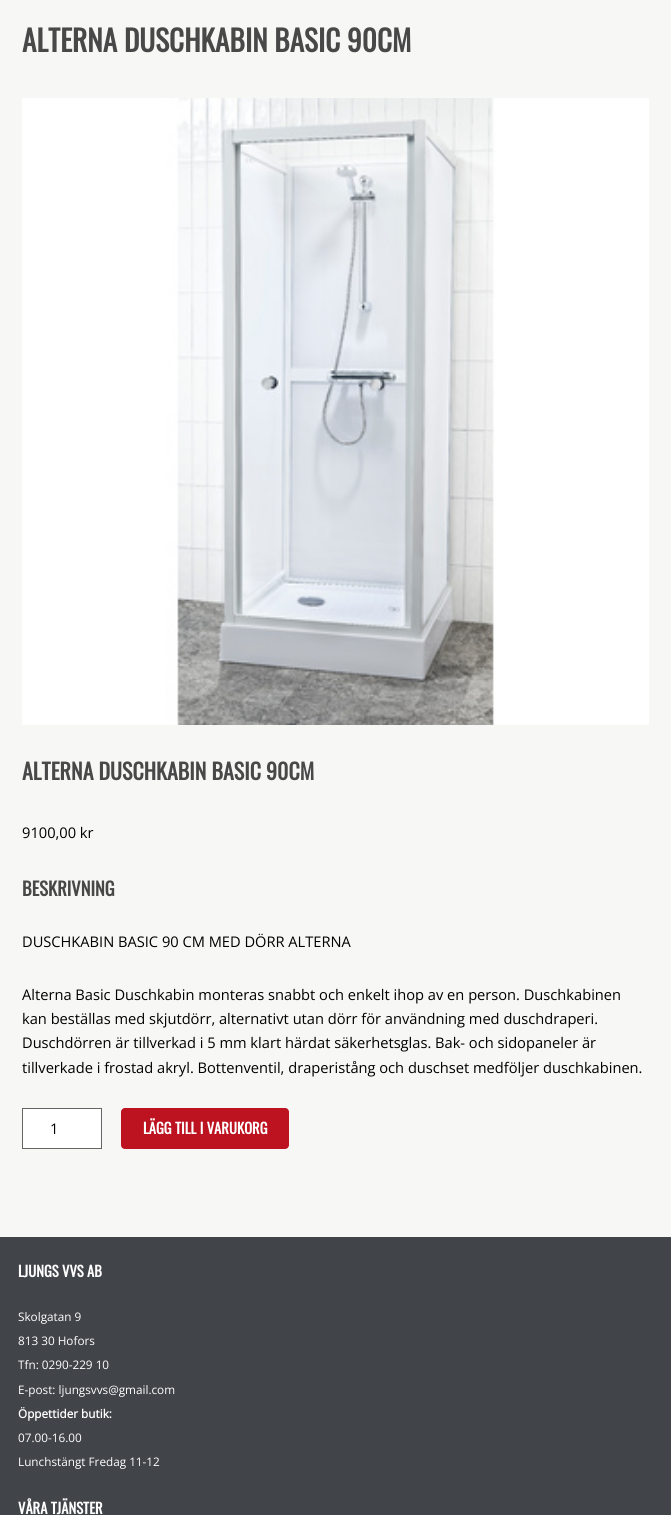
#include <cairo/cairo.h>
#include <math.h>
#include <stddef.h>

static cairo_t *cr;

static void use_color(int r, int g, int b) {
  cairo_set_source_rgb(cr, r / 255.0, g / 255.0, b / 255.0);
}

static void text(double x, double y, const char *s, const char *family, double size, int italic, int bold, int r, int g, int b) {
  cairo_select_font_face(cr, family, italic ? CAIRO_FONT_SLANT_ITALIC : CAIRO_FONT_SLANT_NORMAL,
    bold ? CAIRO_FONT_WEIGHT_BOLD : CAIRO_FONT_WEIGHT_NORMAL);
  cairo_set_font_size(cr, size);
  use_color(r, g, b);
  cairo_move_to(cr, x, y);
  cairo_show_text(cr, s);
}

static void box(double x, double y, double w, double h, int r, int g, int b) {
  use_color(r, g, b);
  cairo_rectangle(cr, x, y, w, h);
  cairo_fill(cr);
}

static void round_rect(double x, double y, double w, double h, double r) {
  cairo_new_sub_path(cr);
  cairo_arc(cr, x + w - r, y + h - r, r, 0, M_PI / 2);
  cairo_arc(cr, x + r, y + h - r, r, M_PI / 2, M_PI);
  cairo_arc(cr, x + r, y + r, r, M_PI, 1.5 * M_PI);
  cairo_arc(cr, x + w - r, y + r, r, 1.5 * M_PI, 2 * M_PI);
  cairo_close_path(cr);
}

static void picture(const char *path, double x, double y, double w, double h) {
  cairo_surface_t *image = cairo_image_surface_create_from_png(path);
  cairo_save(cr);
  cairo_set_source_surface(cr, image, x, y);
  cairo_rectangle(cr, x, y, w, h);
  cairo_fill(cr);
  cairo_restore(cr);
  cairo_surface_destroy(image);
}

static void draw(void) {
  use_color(247, 247, 246);
  cairo_paint(cr);
  picture("img_01.png", 22, 98, 627, 627);
  use_color(255, 255, 255);
  cairo_rectangle(cr, 22.5, 1108.5, 79, 40);
  cairo_fill_preserve(cr);
  use_color(102, 102, 102);
  cairo_set_line_width(cr, 1);
  cairo_stroke(cr);
  use_color(189, 18, 32);
  round_rect(121, 1108, 168, 41, 4);
  cairo_fill(cr);
  box(0, 1237, 671, 278, 65, 68, 73);
  text(22, 52, "ALTERNA DUSCHKABIN BASIC 90CM", "Oswald", 29.3, 0, 1, 72, 72, 72);
  text(22, 780, "ALTERNA DUSCHKABIN BASIC 90CM", "Oswald", 22, 0, 1, 72, 72, 72);
  text(22, 838, "9100,00 kr", "Open Sans", 14.65, 0, 0, 0, 0, 0);
  text(22, 896, "BESKRIVNING", "Oswald", 18.5, 0, 1, 72, 72, 72);
  text(22, 947, "DUSCHKABIN BASIC 90 CM MED DÖRR ALTERNA", "Open Sans", 14.65, 0, 0, 0, 0, 0);
  text(22, 1000, "Alterna Basic Duschkabin monteras snabbt och enkelt ihop av en person. Duschkabinen", "Open Sans", 14.65, 0, 0, 0, 0, 0);
  text(22, 1024, "kan beställas med skjutdörr, alternativt utan dörr för användning med duschdraperi.", "Open Sans", 14.65, 0, 0, 0, 0, 0);
  text(22, 1048, "Duschdörren är tillverkad i 5 mm klart härdat säkerhetsglas. Bak- och sidopaneler är", "Open Sans", 14.65, 0, 0, 0, 0, 0);
  text(22, 1073, "tillverkade i frostad akryl. Bottenventil, draperistång och duschset medföljer duschkabinen.", "Open Sans", 14.65, 0, 0, 0, 0, 0);
  text(50, 1134, "1", "Open Sans", 14.65, 0, 0, 0, 0, 0);
  text(143, 1134, "LÄGG TILL I VARUKORG", "Oswald", 14.65, 0, 1, 255, 255, 255);
  text(18, 1277, "LJUNGS VVS AB", "Oswald", 14.65, 0, 1, 255, 255, 255);
  text(18, 1321, "Skolgatan 9", "Open Sans", 11.75, 0, 0, 255, 255, 255);
  text(18, 1345, "813 30 Hofors", "Open Sans", 11.75, 0, 0, 255, 255, 255);
  text(18, 1369, "Tfn: 0290-229 10", "Open Sans", 11.75, 0, 0, 255, 255, 255);
  text(18, 1394, "E-post: ljungsvvs@gmail.com", "Open Sans", 11.75, 0, 0, 255, 255, 255);
  text(18, 1418, "Öppettider butik:", "Open Sans", 11.75, 0, 1, 255, 255, 255);
  text(18, 1442, "07.00-16.00", "Open Sans", 11.75, 0, 0, 255, 255, 255);
  text(18, 1466, "Lunchstängt Fredag 11-12", "Open Sans", 11.75, 0, 0, 255, 255, 255);
  text(18, 1514, "VÅRA TJÄNSTER", "Oswald", 14.65, 0, 1, 255, 255, 255);
}

int main(void) {
  cairo_surface_t *surface = cairo_image_surface_create(CAIRO_FORMAT_RGB24, 671, 1515);
  cr = cairo_create(surface);
  cairo_font_options_t *options = cairo_font_options_create();
  cairo_font_options_set_hint_metrics(options, CAIRO_HINT_METRICS_OFF);
  cairo_font_options_set_hint_style(options, CAIRO_HINT_STYLE_NONE);
  cairo_set_font_options(cr, options);
  cairo_set_miter_limit(cr, 4);
  draw();
  cairo_surface_write_to_png(surface, "out.png");
  cairo_font_options_destroy(options);
  cairo_destroy(cr);
  cairo_surface_destroy(surface);
  return 0;
}
